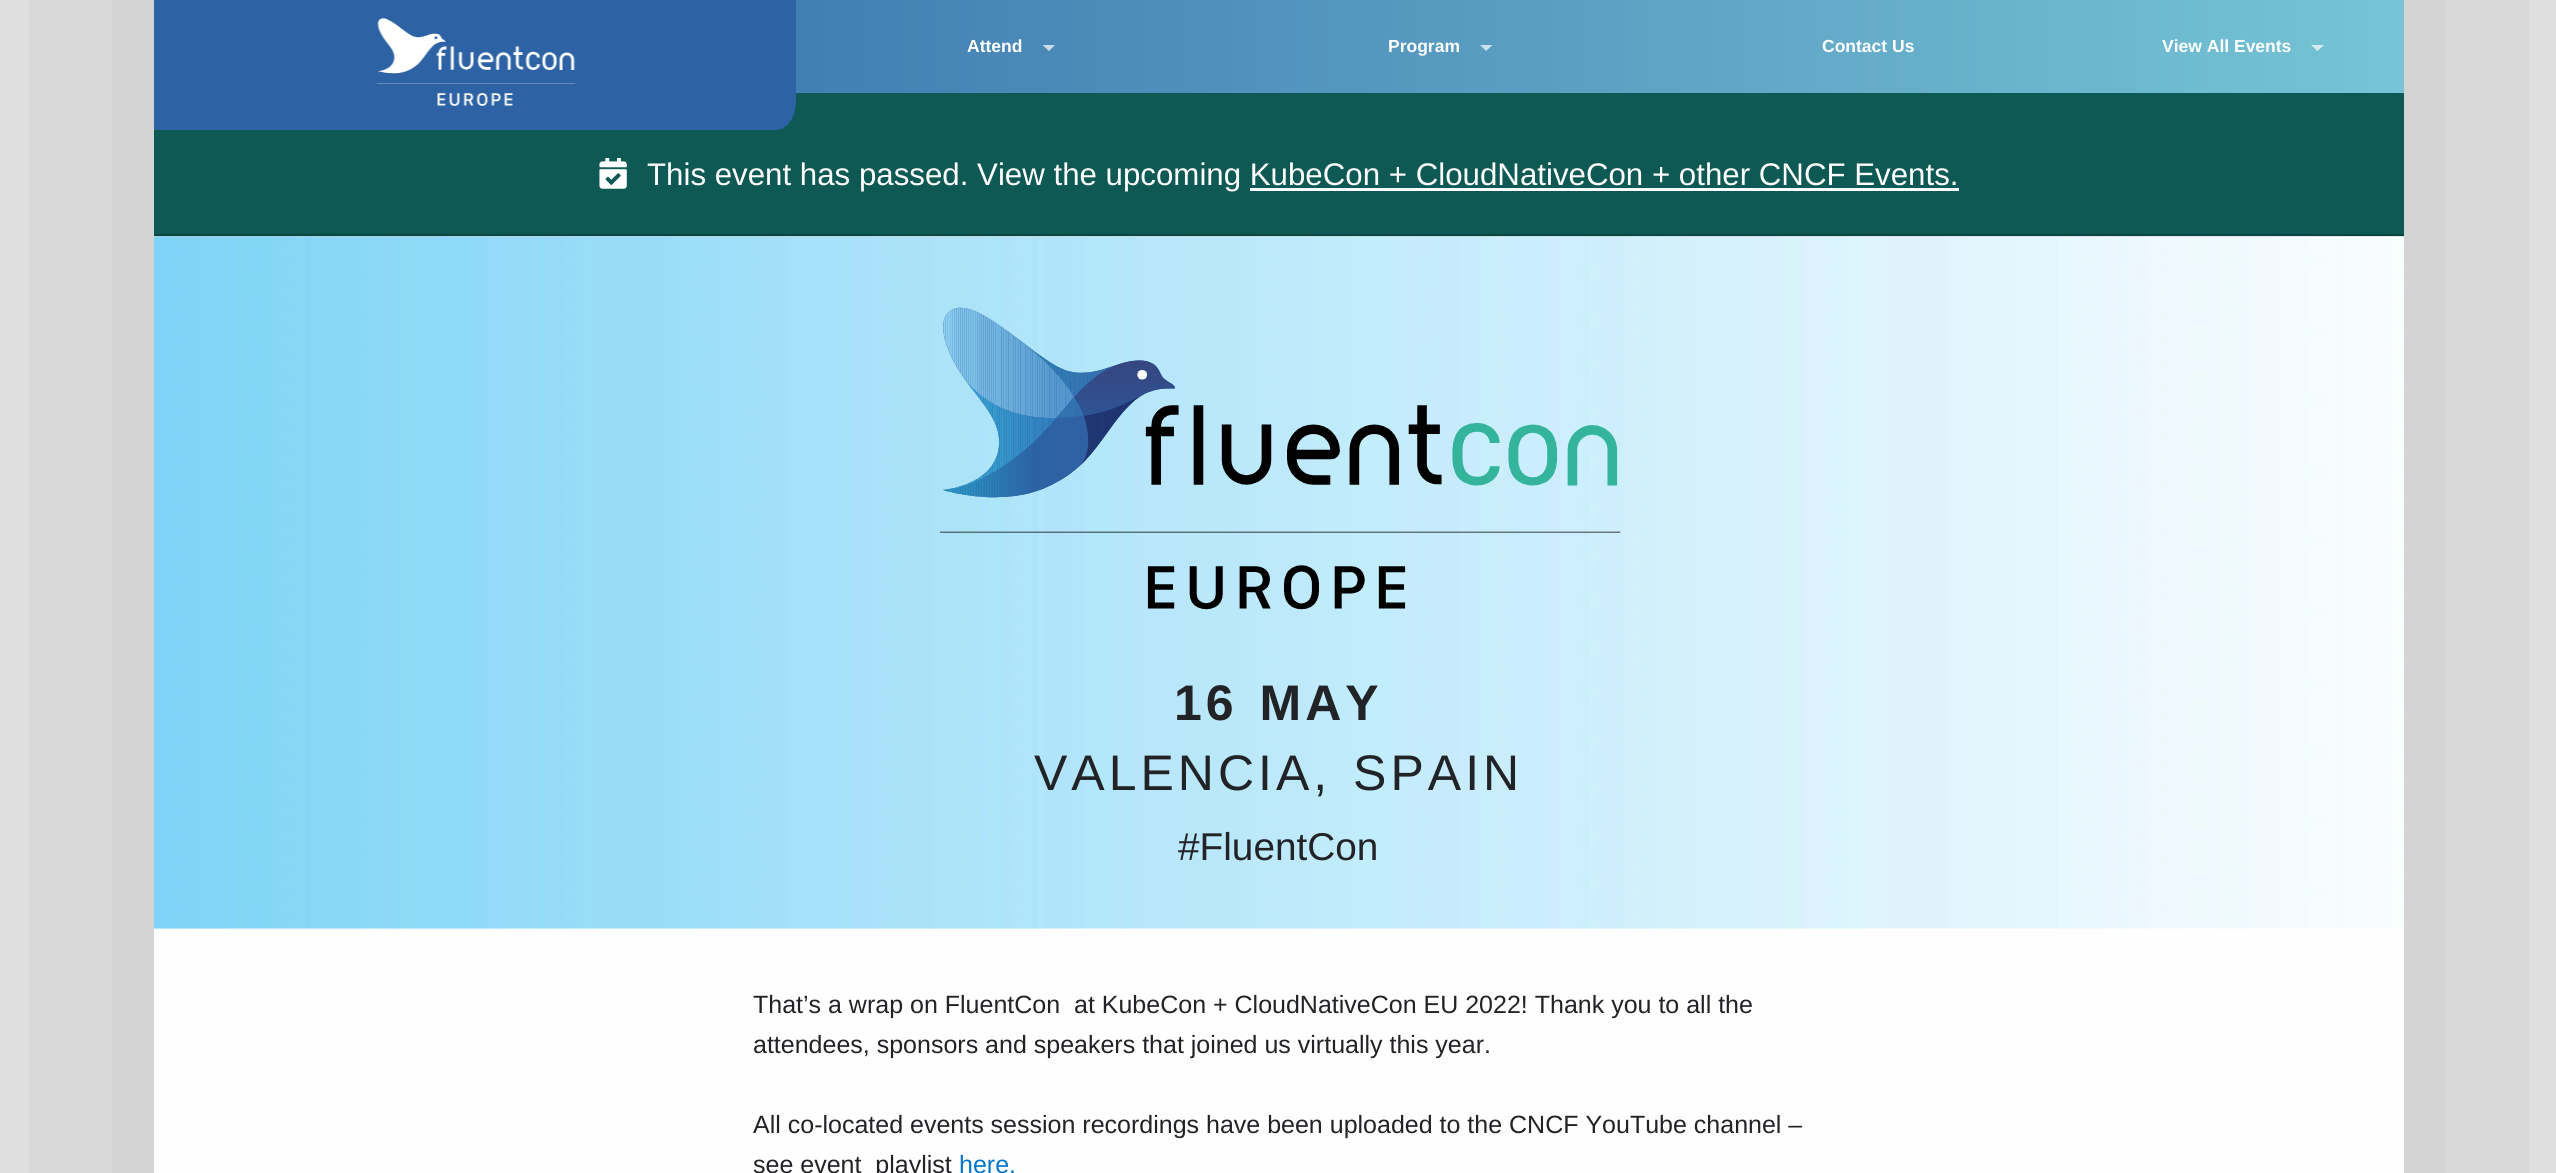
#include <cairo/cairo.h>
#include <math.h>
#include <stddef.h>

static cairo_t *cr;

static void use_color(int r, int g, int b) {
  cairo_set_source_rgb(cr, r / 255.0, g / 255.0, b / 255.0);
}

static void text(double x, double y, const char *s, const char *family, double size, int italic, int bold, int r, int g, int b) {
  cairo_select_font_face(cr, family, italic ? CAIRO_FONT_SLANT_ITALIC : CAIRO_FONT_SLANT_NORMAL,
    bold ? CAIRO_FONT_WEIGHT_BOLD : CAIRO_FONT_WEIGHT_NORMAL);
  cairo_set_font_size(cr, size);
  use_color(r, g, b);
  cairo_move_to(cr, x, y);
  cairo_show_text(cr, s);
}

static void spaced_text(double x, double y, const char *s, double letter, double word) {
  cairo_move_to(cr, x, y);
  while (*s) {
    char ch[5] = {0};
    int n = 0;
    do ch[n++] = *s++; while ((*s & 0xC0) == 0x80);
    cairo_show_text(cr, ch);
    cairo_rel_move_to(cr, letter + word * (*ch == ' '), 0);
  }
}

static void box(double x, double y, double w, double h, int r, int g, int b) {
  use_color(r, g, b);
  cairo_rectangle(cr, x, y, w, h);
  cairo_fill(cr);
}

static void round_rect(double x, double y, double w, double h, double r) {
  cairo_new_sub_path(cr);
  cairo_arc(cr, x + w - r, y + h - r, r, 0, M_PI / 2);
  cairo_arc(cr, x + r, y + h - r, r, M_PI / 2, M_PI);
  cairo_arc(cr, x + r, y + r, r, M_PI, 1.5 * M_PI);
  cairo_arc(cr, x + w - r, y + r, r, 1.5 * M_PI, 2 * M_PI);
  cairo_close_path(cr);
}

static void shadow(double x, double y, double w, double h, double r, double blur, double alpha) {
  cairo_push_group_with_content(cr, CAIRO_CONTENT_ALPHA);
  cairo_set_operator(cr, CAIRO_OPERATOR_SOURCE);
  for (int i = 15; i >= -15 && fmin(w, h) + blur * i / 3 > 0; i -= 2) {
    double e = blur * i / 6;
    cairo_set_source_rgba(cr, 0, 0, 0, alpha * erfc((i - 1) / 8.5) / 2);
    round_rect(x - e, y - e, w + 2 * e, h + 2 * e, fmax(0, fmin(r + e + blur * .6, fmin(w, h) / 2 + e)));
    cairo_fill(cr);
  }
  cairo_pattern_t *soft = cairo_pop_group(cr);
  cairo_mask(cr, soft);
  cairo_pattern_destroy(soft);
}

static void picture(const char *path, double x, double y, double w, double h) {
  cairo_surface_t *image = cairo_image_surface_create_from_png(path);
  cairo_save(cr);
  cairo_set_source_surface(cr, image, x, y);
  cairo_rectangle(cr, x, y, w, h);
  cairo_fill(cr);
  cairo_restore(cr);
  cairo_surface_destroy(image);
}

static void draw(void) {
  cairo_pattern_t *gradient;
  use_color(255, 255, 255);
  cairo_paint(cr);
  use_color(0, 0, 0);
  shadow(-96, -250, 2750, 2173, 0, 250, 0.2);
  gradient = cairo_pattern_create_linear(154, 46, 2404, 46);
  cairo_pattern_add_color_stop_rgba(gradient, 0, 0.176, 0.388, 0.643, 1);
  cairo_pattern_add_color_stop_rgba(gradient, 1, 0.463, 0.769, 0.835, 1);
  cairo_set_source(cr, gradient);
  cairo_pattern_destroy(gradient);
  cairo_rectangle(cr, 796, 0, 1608, 93);
  cairo_fill(cr);
  box(154, 93, 2250, 143, 14, 89, 83);
  use_color(45, 99, 164);
  cairo_new_path(cr);
  cairo_move_to(cr, 154, 0);
  cairo_line_to(cr, 796, 0);
  cairo_line_to(cr, 796, 101);
  cairo_curve_to(cr, 796, 117, 787, 130, 776, 130);
  cairo_line_to(cr, 154, 130);
  cairo_close_path(cr);
  cairo_fill(cr);
  picture("img_01.png", 376, 18, 200, 88);
  use_color(201, 220, 234);
  cairo_new_path(cr);
  cairo_move_to(cr, 1042.5, 45);
  cairo_line_to(cr, 1055, 45);
  cairo_line_to(cr, 1049, 51);
  cairo_close_path(cr);
  cairo_fill(cr);
  use_color(205, 225, 236);
  cairo_new_path(cr);
  cairo_move_to(cr, 1480, 45);
  cairo_line_to(cr, 1492.5, 45);
  cairo_line_to(cr, 1486, 51);
  cairo_close_path(cr);
  cairo_fill(cr);
  use_color(213, 236, 242);
  cairo_new_path(cr);
  cairo_move_to(cr, 2311, 45);
  cairo_line_to(cr, 2324, 45);
  cairo_line_to(cr, 2317.5, 51);
  cairo_close_path(cr);
  cairo_fill(cr);
  box(154, 236, 2250, 937, 254, 254, 254);
  cairo_set_source_rgba(cr, 0, 0, 0, 0.2);
  cairo_rectangle(cr, 154, 234, 2250, 3);
  cairo_fill(cr);
  picture("img_02.png", 599, 158, 28, 31);
  box(1250, 188, 709, 3, 255, 255, 255);
  picture("img_03.png", 153, 236, 2251, 693);
  picture("img_04.png", 940, 307, 681, 303);
  text(967, 52, "Attend", "Liberation Sans", 17.5, 0, 1, 255, 255, 255);
  text(1388, 52, "Program", "Liberation Sans", 17.5, 0, 1, 255, 255, 255);
  text(1822, 52, "Contact Us", "Liberation Sans", 17.5, 0, 1, 255, 255, 255);
  text(2162, 52, "View All Events", "Liberation Sans", 17.5, 0, 1, 255, 255, 255);
  text(647, 185, "This event has passed. View the upcoming KubeCon + CloudNativeCon + other CNCF Events.", "Liberation Sans", 31.25, 0, 0, 255, 255, 255);
  cairo_select_font_face(cr, "Liberation Sans", CAIRO_FONT_SLANT_NORMAL, CAIRO_FONT_WEIGHT_BOLD);
  cairo_set_font_size(cr, 50);
  use_color(33, 35, 38);
  spaced_text(1174, 720, "16 MAY", 4, 4);
  cairo_select_font_face(cr, "Liberation Sans", CAIRO_FONT_SLANT_NORMAL, CAIRO_FONT_WEIGHT_NORMAL);
  spaced_text(1034, 790, "VALENCIA, SPAIN", 4, 4);
  text(1178, 860, "#FluentCon", "Liberation Sans", 38.75, 0, 0, 33, 35, 38);
  text(753, 1013, "That’s a wrap on FluentCon  at KubeCon + CloudNativeCon EU 2022! Thank you to all the", "Liberation Sans", 25, 0, 0, 33, 35, 38);
  text(753, 1053, "attendees, sponsors and speakers that joined us virtually this year.", "Liberation Sans", 25, 0, 0, 33, 35, 38);
  text(753, 1133, "All co-located events session recordings have been uploaded to the CNCF YouTube channel –", "Liberation Sans", 25, 0, 0, 33, 35, 38);
  text(753, 1173, "see event  playlist", "Liberation Sans", 25, 0, 0, 33, 35, 38);
  text(959, 1173, "here.", "Liberation Sans", 25, 0, 0, 0, 119, 204);
}

int main(void) {
  cairo_surface_t *surface = cairo_image_surface_create(CAIRO_FORMAT_RGB24, 2556, 1173);
  cr = cairo_create(surface);
  cairo_font_options_t *options = cairo_font_options_create();
  cairo_font_options_set_hint_metrics(options, CAIRO_HINT_METRICS_OFF);
  cairo_font_options_set_hint_style(options, CAIRO_HINT_STYLE_NONE);
  cairo_set_font_options(cr, options);
  cairo_set_miter_limit(cr, 4);
  draw();
  cairo_surface_write_to_png(surface, "out.png");
  cairo_font_options_destroy(options);
  cairo_destroy(cr);
  cairo_surface_destroy(surface);
  return 0;
}
